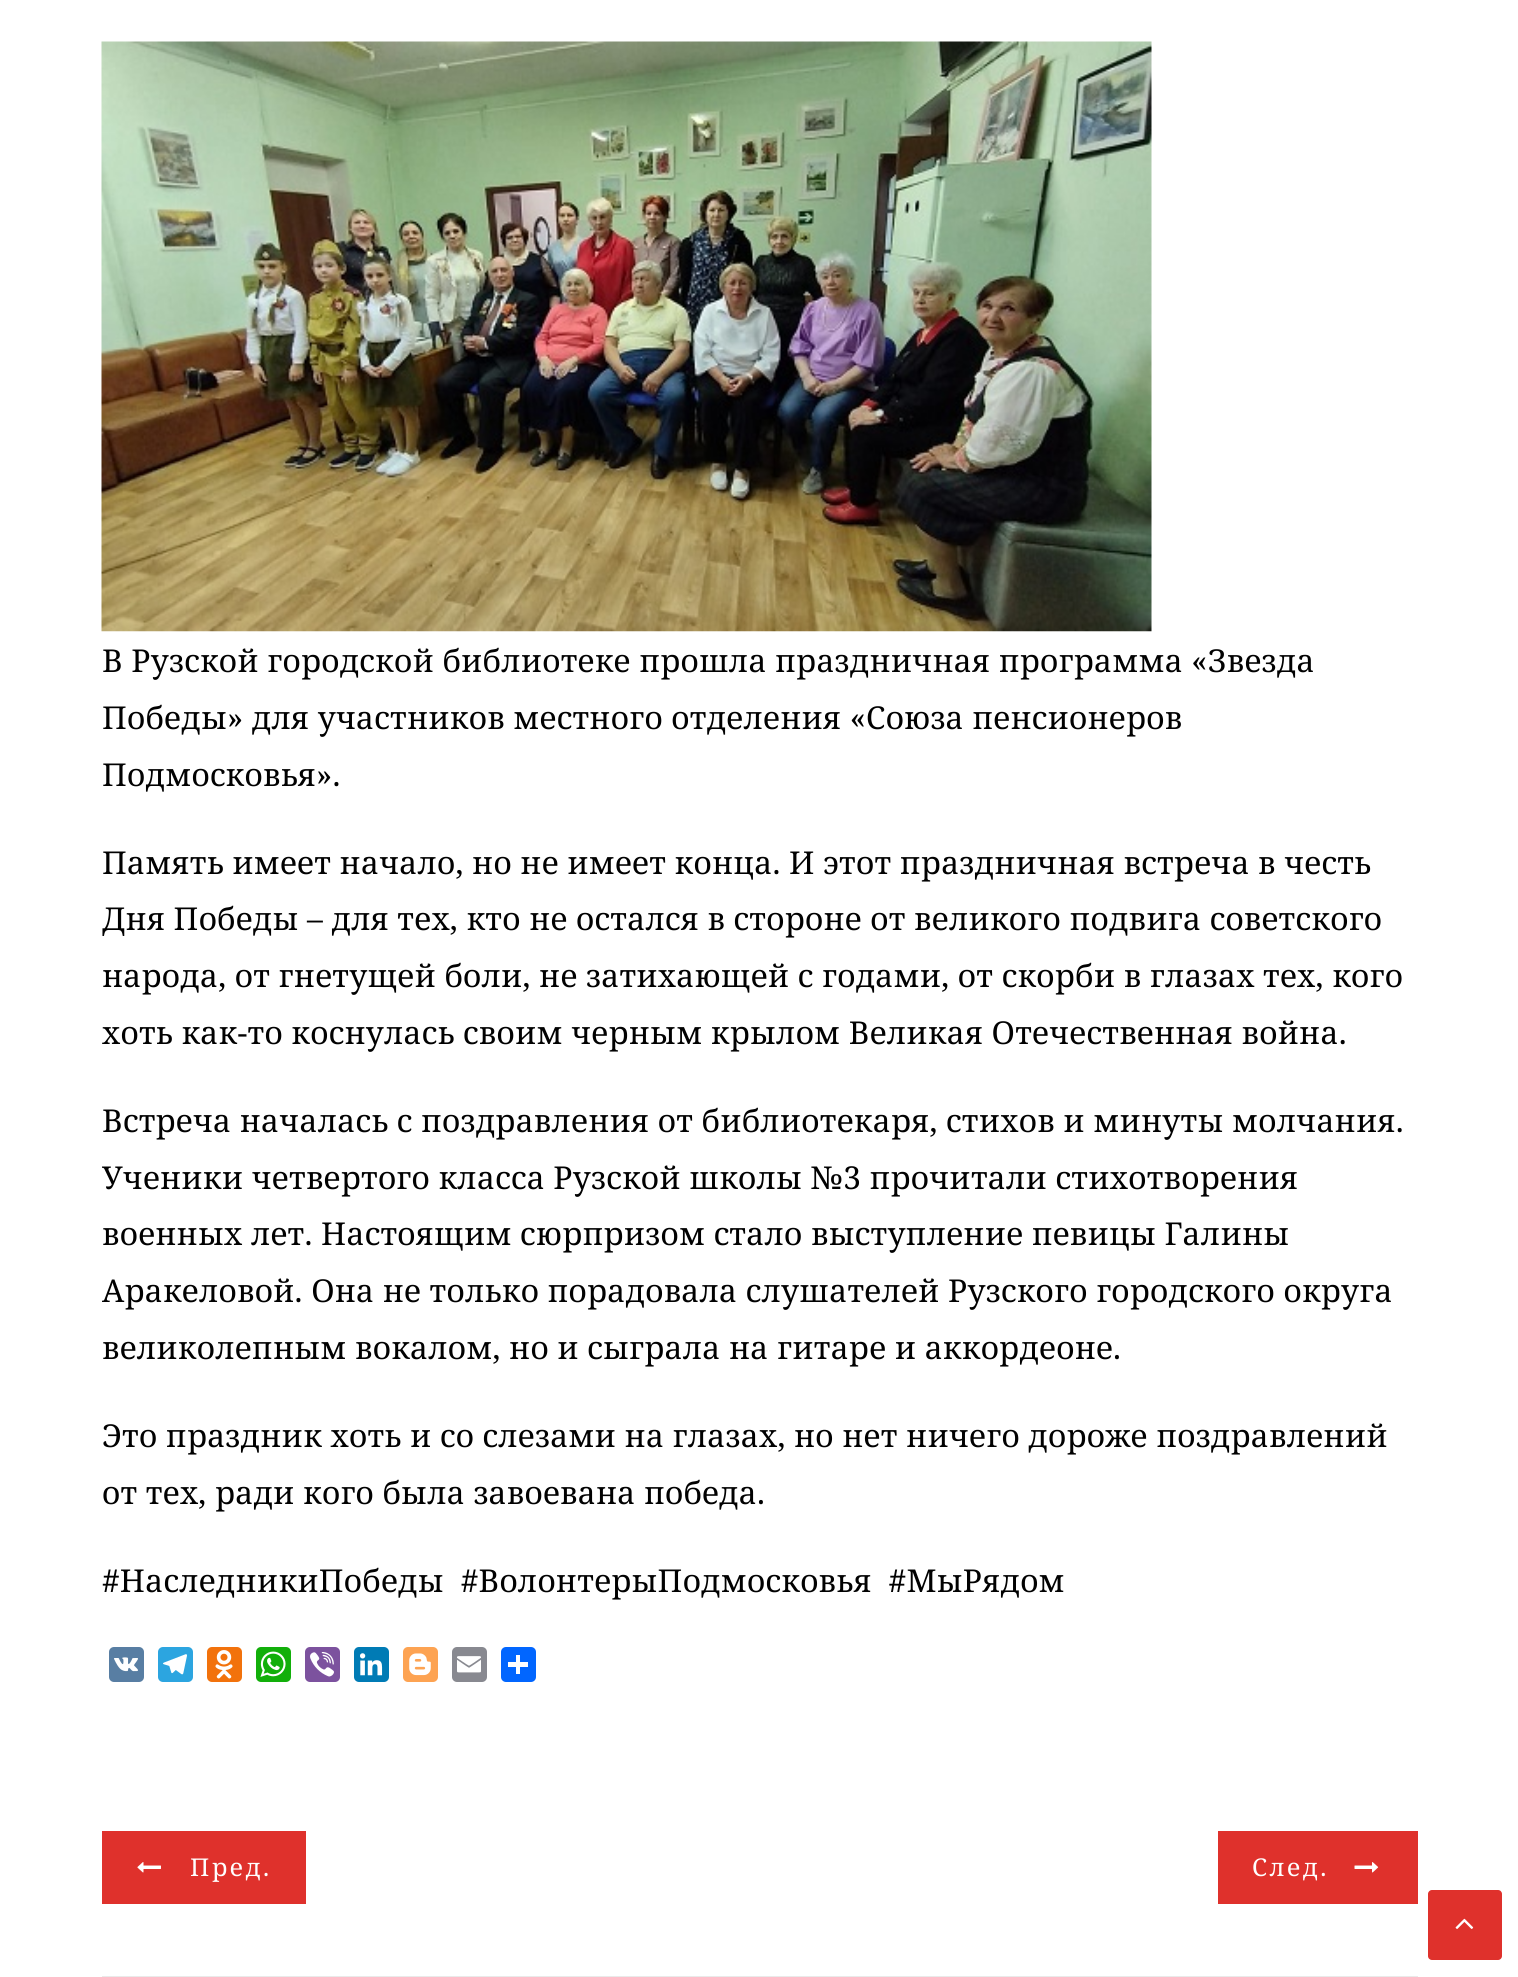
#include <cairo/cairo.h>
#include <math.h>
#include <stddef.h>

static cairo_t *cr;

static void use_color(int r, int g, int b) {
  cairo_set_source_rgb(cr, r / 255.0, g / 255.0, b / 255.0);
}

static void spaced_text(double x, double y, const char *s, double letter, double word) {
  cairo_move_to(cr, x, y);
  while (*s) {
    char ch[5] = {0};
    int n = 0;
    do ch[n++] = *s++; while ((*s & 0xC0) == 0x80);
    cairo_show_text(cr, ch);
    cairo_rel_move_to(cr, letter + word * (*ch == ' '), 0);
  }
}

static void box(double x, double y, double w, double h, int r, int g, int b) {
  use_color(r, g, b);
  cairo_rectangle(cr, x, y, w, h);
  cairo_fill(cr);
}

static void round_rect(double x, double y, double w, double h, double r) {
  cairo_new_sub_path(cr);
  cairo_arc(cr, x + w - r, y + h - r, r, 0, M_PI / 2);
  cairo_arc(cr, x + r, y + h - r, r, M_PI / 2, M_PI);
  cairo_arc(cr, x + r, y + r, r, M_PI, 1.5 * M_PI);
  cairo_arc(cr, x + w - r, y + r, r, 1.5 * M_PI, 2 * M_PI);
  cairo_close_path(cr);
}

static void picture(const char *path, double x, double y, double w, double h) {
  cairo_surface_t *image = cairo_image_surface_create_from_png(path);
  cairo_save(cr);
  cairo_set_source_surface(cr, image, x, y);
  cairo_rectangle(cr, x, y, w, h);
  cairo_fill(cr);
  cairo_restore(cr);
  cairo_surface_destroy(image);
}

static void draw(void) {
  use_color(255, 255, 255);
  cairo_paint(cr);
  picture("img_01.png", 101, 41, 1051, 591);
  use_color(88, 126, 163);
  round_rect(109, 1647, 35, 35, 5);
  cairo_fill(cr);
  picture("img_02.png", 114, 1657, 24, 15);
  use_color(44, 165, 224);
  round_rect(158, 1647, 35, 35, 5);
  cairo_fill(cr);
  picture("img_03.png", 163, 1654, 24, 21);
  use_color(242, 114, 12);
  round_rect(207, 1647, 35, 35, 5);
  cairo_fill(cr);
  picture("img_04.png", 215, 1650, 18, 29);
  use_color(18, 175, 10);
  round_rect(256, 1647, 35, 35, 5);
  cairo_fill(cr);
  picture("img_05.png", 260, 1651, 26, 26);
  use_color(124, 82, 158);
  round_rect(305, 1647, 35, 35, 5);
  cairo_fill(cr);
  picture("img_06.png", 310, 1652, 24, 25);
  use_color(0, 123, 181);
  round_rect(354, 1647, 35, 35, 5);
  cairo_fill(cr);
  picture("img_07.png", 360, 1653, 23, 23);
  use_color(253, 163, 82);
  round_rect(403, 1647, 35, 35, 5);
  cairo_fill(cr);
  picture("img_08.png", 409, 1653, 22, 23);
  use_color(136, 137, 144);
  round_rect(452, 1647, 35, 35, 5);
  cairo_fill(cr);
  picture("img_09.png", 457, 1656, 24, 17);
  use_color(1, 102, 255);
  round_rect(501, 1647, 35, 35, 5);
  cairo_fill(cr);
  box(516, 1655, 4, 19, 255, 255, 255);
  box(508, 1662, 20, 5, 255, 255, 255);
  box(102, 1831, 204, 73, 223, 49, 44);
  picture("img_10.png", 137, 1862, 24, 11);
  box(1218, 1831, 200, 73, 223, 49, 44);
  picture("img_11.png", 1354, 1862, 25, 11);
  box(102, 1976, 1316, 1, 234, 234, 234);
  use_color(223, 49, 44);
  round_rect(1428, 1890, 74, 70, 4);
  cairo_fill(cr);
  picture("img_12.png", 1455, 1918, 19, 11);
  cairo_select_font_face(cr, "Noto Serif", CAIRO_FONT_SLANT_NORMAL, CAIRO_FONT_WEIGHT_NORMAL);
  cairo_set_font_size(cr, 31.5);
  use_color(1, 1, 1);
  spaced_text(102, 672, "В Рузской городской библиотеке прошла праздничная программа «Звезда", 0.25, 0);
  spaced_text(102, 729, "Победы» для участников местного отделения «Союза пенсионеров", 0.25, 0);
  spaced_text(102, 786, "Подмосковья».", 0.25, 0);
  spaced_text(102, 874, "Память имеет начало, но не имеет конца. И этот праздничная встреча в честь", 0.25, 0);
  spaced_text(102, 930, "Дня Победы – для тех, кто не остался в стороне от великого подвига советского", 0.25, 0);
  spaced_text(102, 987, "народа, от гнетущей боли, не затихающей с годами, от скорби в глазах тех, кого", 0.25, 0);
  spaced_text(102, 1044, "хоть как-то коснулась своим черным крылом Великая Отечественная война.", 0.25, 0);
  spaced_text(102, 1132, "Встреча началась с поздравления от библиотекаря, стихов и минуты молчания.", 0.25, 0);
  spaced_text(102, 1189, "Ученики четвертого класса Рузской школы №3 прочитали стихотворения", 0.25, 0);
  spaced_text(102, 1245, "военных лет. Настоящим сюрпризом стало выступление певицы Галины", 0.25, 0);
  spaced_text(102, 1302, "Аракеловой. Она не только порадовала слушателей Рузского городского округа", 0.25, 0);
  spaced_text(102, 1359, "великолепным вокалом, но и сыграла на гитаре и аккордеоне.", 0.25, 0);
  spaced_text(102, 1447, "Это праздник хоть и со слезами на глазах, но нет ничего дороже поздравлений", 0.25, 0);
  spaced_text(102, 1504, "от тех, ради кого была завоевана победа.", 0.25, 0);
  spaced_text(102, 1592, "#НаследникиПобеды  #ВолонтерыПодмосковья  #МыРядом", 0.25, 0);
  cairo_set_font_size(cr, 24.5);
  use_color(255, 255, 255);
  spaced_text(190, 1876, "Пред.", 2.5, 0);
  spaced_text(1252, 1876, "След.", 2.5, 0);
}

int main(void) {
  cairo_surface_t *surface = cairo_image_surface_create(CAIRO_FORMAT_RGB24, 1518, 1977);
  cr = cairo_create(surface);
  cairo_font_options_t *options = cairo_font_options_create();
  cairo_font_options_set_hint_metrics(options, CAIRO_HINT_METRICS_OFF);
  cairo_font_options_set_hint_style(options, CAIRO_HINT_STYLE_NONE);
  cairo_set_font_options(cr, options);
  cairo_set_miter_limit(cr, 4);
  draw();
  cairo_surface_write_to_png(surface, "out.png");
  cairo_font_options_destroy(options);
  cairo_destroy(cr);
  cairo_surface_destroy(surface);
  return 0;
}
